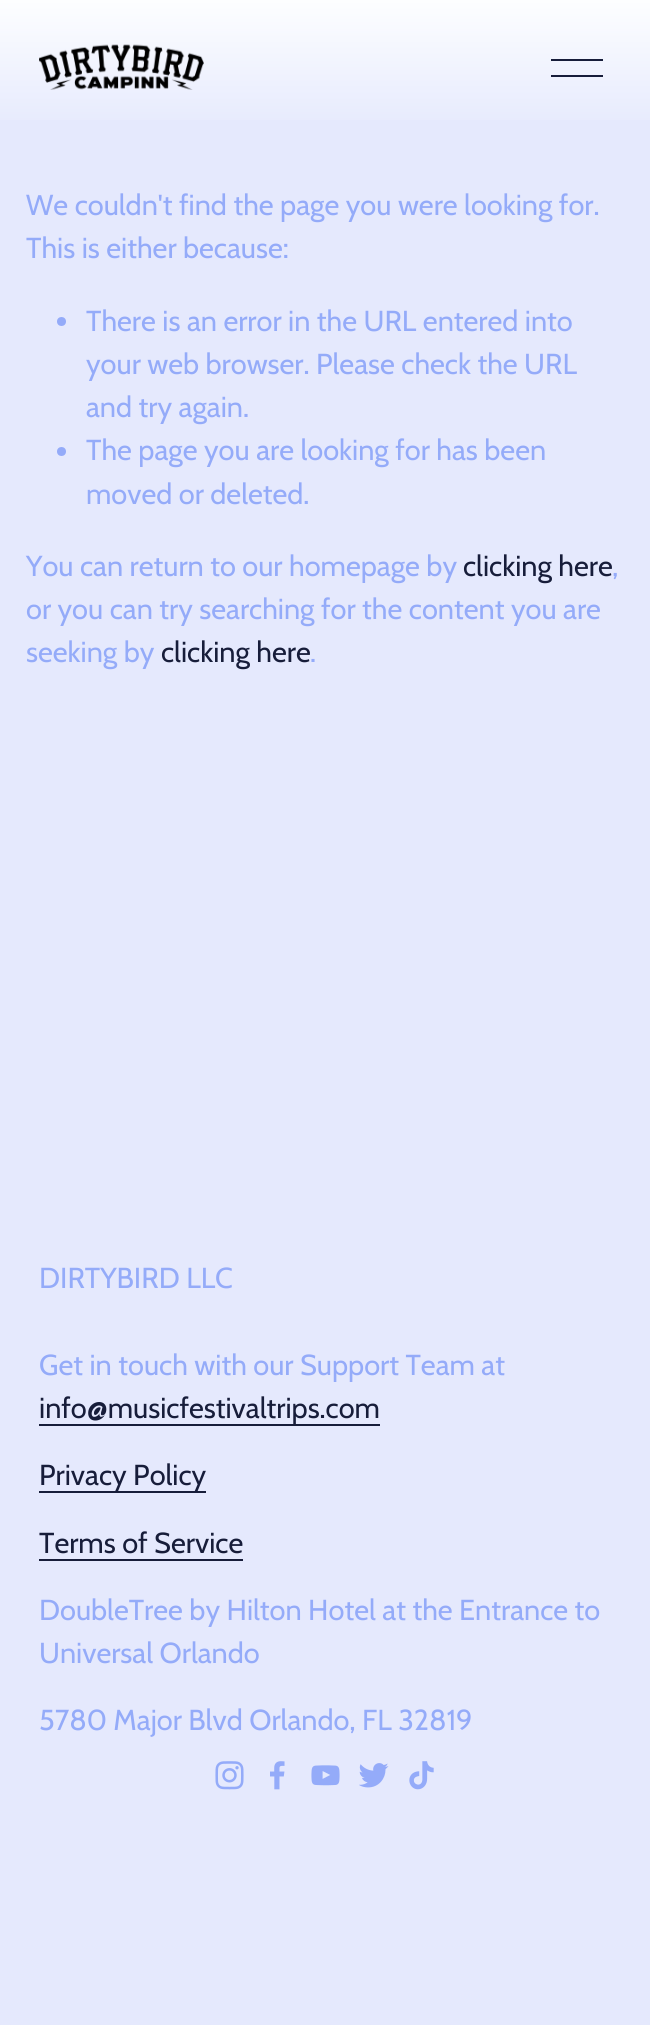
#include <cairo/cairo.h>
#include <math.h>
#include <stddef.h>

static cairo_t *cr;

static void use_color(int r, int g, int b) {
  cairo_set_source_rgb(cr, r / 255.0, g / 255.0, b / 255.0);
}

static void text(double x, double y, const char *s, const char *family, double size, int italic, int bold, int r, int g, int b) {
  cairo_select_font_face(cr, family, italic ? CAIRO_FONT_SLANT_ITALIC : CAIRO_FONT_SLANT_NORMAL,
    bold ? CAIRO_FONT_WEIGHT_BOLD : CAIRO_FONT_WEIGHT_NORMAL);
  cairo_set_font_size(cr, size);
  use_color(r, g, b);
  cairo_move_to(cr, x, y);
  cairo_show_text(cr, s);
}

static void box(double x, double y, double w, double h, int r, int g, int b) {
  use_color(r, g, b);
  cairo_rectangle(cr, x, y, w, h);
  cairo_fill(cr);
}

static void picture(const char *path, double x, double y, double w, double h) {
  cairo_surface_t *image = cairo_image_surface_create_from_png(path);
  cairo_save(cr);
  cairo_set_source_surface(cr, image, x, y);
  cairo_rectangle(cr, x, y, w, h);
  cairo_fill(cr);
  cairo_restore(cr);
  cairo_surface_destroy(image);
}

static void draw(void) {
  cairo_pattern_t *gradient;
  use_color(229, 233, 253);
  cairo_paint(cr);
  gradient = cairo_pattern_create_linear(326, 0, 326, 134);
  cairo_pattern_add_color_stop_rgba(gradient, 0, 0.992, 0.996, 1, 1);
  cairo_pattern_add_color_stop_rgba(gradient, 1, 0.898, 0.914, 0.992, 1);
  cairo_set_source(cr, gradient);
  cairo_pattern_destroy(gradient);
  cairo_rectangle(cr, 0, 0, 650, 120);
  cairo_fill(cr);
  picture("img_01.png", 39, 44, 165, 46);
  box(551, 59, 52, 2, 23, 29, 58);
  box(551, 75, 52, 2, 23, 29, 58);
  use_color(148, 171, 249);
  cairo_arc(cr, 61.5, 321.5, 4.5, 0, 2 * M_PI);
  cairo_fill(cr);
  cairo_arc(cr, 61.5, 451.5, 4.5, 0, 2 * M_PI);
  cairo_fill(cr);
  box(39, 1424, 341, 2, 23, 29, 58);
  box(39, 1491, 167, 2, 23, 29, 58);
  box(39, 1559, 204, 2, 23, 29, 58);
  picture("img_02.png", 215, 1761, 29, 29);
  picture("img_03.png", 270, 1761, 15, 29);
  picture("img_04.png", 311, 1765, 29, 21);
  picture("img_05.png", 359, 1763, 30, 25);
  picture("img_06.png", 409, 1761, 25, 29);
  text(26, 215, "We couldn't find the page you were looking for.", "Cabin", 28.9, 0, 0, 148, 171, 249);
  text(26, 258, "This is either because:", "Cabin", 28.9, 0, 0, 148, 171, 249);
  text(86, 331, "There is an error in the URL entered into", "Cabin", 28.9, 0, 0, 148, 171, 249);
  text(86, 374, "your web browser. Please check the URL", "Cabin", 28.9, 0, 0, 148, 171, 249);
  text(86, 417, "and try again.", "Cabin", 28.9, 0, 0, 148, 171, 249);
  text(86, 460, "The page you are looking for has been", "Cabin", 28.9, 0, 0, 148, 171, 249);
  text(86, 504, "moved or deleted.", "Cabin", 28.9, 0, 0, 148, 171, 249);
  text(26, 576, "You can return to our homepage by", "Cabin", 28.9, 0, 0, 148, 171, 249);
  text(463, 576, "clicking here", "Cabin", 28.9, 0, 0, 23, 29, 58);
  text(612, 576, ",", "Cabin", 28.9, 0, 0, 148, 171, 249);
  text(26, 619, "or you can try searching for the content you are", "Cabin", 28.9, 0, 0, 148, 171, 249);
  text(26, 662, "seeking by", "Cabin", 28.9, 0, 0, 148, 171, 249);
  text(161, 662, "clicking here", "Cabin", 28.9, 0, 0, 23, 29, 58);
  text(310, 662, ".", "Cabin", 28.9, 0, 0, 148, 171, 249);
  text(39, 1288, "DIRTYBIRD LLC", "Cabin", 28.9, 0, 0, 148, 171, 249);
  text(39, 1375, "Get in touch with our Support Team at", "Cabin", 28.9, 0, 0, 148, 171, 249);
  text(39, 1418, "info@musicfestivaltrips.com", "Cabin", 28.9, 0, 0, 23, 29, 58);
  text(39, 1485, "Privacy Policy", "Cabin", 28.9, 0, 0, 23, 29, 58);
  text(39, 1553, "Terms of Service", "Cabin", 28.9, 0, 0, 23, 29, 58);
  text(39, 1620, "DoubleTree by Hilton Hotel at the Entrance to", "Cabin", 28.9, 0, 0, 148, 171, 249);
  text(39, 1663, "Universal Orlando", "Cabin", 28.9, 0, 0, 148, 171, 249);
  text(39, 1730, "5780 Major Blvd Orlando, FL 32819", "Cabin", 28.9, 0, 0, 148, 171, 249);
}

int main(void) {
  cairo_surface_t *surface = cairo_image_surface_create(CAIRO_FORMAT_RGB24, 650, 2025);
  cr = cairo_create(surface);
  cairo_font_options_t *options = cairo_font_options_create();
  cairo_font_options_set_hint_metrics(options, CAIRO_HINT_METRICS_OFF);
  cairo_font_options_set_hint_style(options, CAIRO_HINT_STYLE_NONE);
  cairo_set_font_options(cr, options);
  cairo_set_miter_limit(cr, 4);
  draw();
  cairo_surface_write_to_png(surface, "out.png");
  cairo_font_options_destroy(options);
  cairo_destroy(cr);
  cairo_surface_destroy(surface);
  return 0;
}
